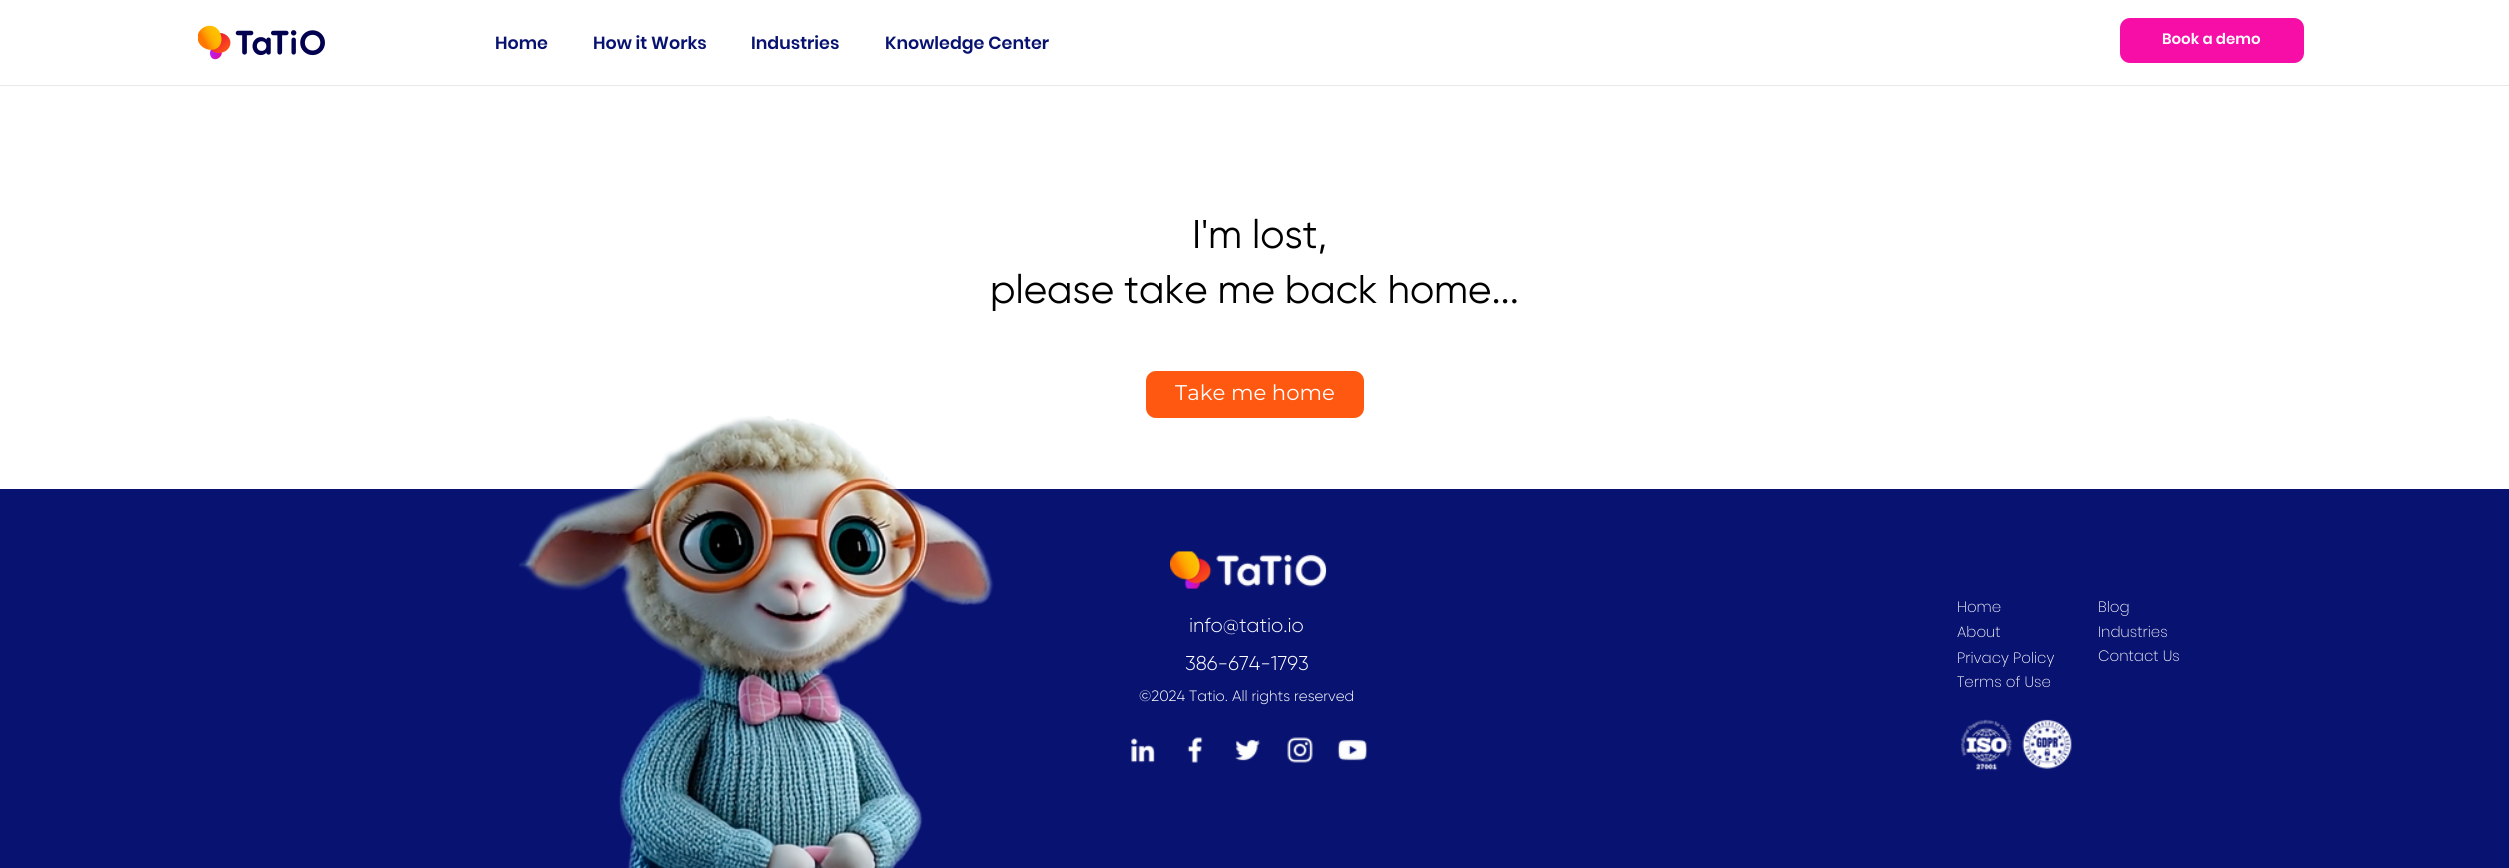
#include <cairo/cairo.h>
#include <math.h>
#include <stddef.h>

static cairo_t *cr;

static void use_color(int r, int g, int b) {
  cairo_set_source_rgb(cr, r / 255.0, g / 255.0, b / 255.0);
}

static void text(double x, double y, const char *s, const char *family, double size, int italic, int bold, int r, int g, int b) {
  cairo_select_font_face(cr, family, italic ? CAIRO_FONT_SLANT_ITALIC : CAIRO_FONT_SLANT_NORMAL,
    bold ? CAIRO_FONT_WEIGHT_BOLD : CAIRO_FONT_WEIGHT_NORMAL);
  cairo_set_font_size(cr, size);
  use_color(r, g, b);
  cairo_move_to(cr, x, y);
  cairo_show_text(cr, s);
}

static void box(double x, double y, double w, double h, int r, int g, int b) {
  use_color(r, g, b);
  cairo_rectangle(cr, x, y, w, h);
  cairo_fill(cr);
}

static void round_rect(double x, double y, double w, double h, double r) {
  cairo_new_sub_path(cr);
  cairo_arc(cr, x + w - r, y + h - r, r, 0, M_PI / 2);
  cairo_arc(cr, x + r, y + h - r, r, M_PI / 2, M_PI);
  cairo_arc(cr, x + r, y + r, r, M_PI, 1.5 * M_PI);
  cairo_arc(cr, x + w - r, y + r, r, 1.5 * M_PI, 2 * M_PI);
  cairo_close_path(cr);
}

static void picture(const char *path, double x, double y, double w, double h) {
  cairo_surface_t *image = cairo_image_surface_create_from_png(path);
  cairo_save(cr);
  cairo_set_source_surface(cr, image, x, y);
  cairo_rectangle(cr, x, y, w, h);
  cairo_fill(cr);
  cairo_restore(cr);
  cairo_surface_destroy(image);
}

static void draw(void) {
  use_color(255, 255, 255);
  cairo_paint(cr);
  picture("img_01.png", 198, 25, 127, 35);
  use_color(247, 14, 167);
  round_rect(2120, 18, 184, 45, 10);
  cairo_fill(cr);
  box(0, 85, 2509, 1, 232, 230, 230);
  use_color(255, 88, 17);
  round_rect(1146, 371, 218, 47, 10);
  cairo_fill(cr);
  box(0, 489, 2509, 379, 8, 18, 113);
  picture("img_02.png", 519, 415, 475, 453);
  picture("img_03.png", 1170, 551, 157, 38);
  picture("img_04.png", 1131, 738, 24, 25);
  picture("img_05.png", 1187, 737, 16, 26);
  picture("img_06.png", 1235, 739, 26, 22);
  picture("img_07.png", 1287, 737, 26, 26);
  picture("img_08.png", 1337, 739, 31, 22);
  picture("img_09.png", 1961, 719, 111, 52);
  text(495, 49, "Home", "Poppins SemiBold", 17.5, 0, 0, 8, 18, 113);
  text(593, 49, "How it Works", "Poppins SemiBold", 17.5, 0, 0, 8, 18, 113);
  text(751, 49, "Industries", "Poppins SemiBold", 17.5, 0, 0, 8, 18, 113);
  text(885, 49, "Knowledge Center", "Poppins SemiBold", 17.5, 0, 0, 8, 18, 113);
  text(2162, 44, "Book a demo", "Poppins SemiBold", 15, 0, 0, 255, 255, 255);
  text(1192, 248, "I'm lost,", "Gilroy", 40, 0, 0, 0, 0, 0);
  text(990, 303, "please take me back home...", "Gilroy", 40, 0, 0, 0, 0, 0);
  text(1175, 400, "Take me home", "Montserrat", 21.25, 0, 0, 255, 255, 255);
  text(1189, 632, "info@tatio.io", "Gilroy Light", 20, 0, 0, 255, 255, 255);
  text(1185, 670, "386-674-1793", "Gilroy Light", 20, 0, 0, 255, 255, 255);
  text(1139, 701, "©2024 Tatio. All rights reserved", "Gilroy Light", 15, 0, 0, 255, 255, 255);
  text(1957, 612, "Home", "Poppins ExtraLight", 15, 0, 0, 255, 255, 255);
  text(2098, 612, "Blog", "Poppins ExtraLight", 15, 0, 0, 255, 255, 255);
  text(1957, 637, "About", "Poppins ExtraLight", 15, 0, 0, 255, 255, 255);
  text(2098, 637, "Industries", "Poppins ExtraLight", 15, 0, 0, 255, 255, 255);
  text(1957, 663, "Privacy Policy", "Poppins ExtraLight", 15, 0, 0, 255, 255, 255);
  text(2098, 661, "Contact Us", "Poppins ExtraLight", 15, 0, 0, 255, 255, 255);
  text(1957, 687, "Terms of Use", "Poppins ExtraLight", 15, 0, 0, 255, 255, 255);
}

int main(void) {
  cairo_surface_t *surface = cairo_image_surface_create(CAIRO_FORMAT_RGB24, 2509, 868);
  cr = cairo_create(surface);
  cairo_font_options_t *options = cairo_font_options_create();
  cairo_font_options_set_hint_metrics(options, CAIRO_HINT_METRICS_OFF);
  cairo_font_options_set_hint_style(options, CAIRO_HINT_STYLE_NONE);
  cairo_set_font_options(cr, options);
  cairo_set_miter_limit(cr, 4);
  draw();
  cairo_surface_write_to_png(surface, "out.png");
  cairo_font_options_destroy(options);
  cairo_destroy(cr);
  cairo_surface_destroy(surface);
  return 0;
}
